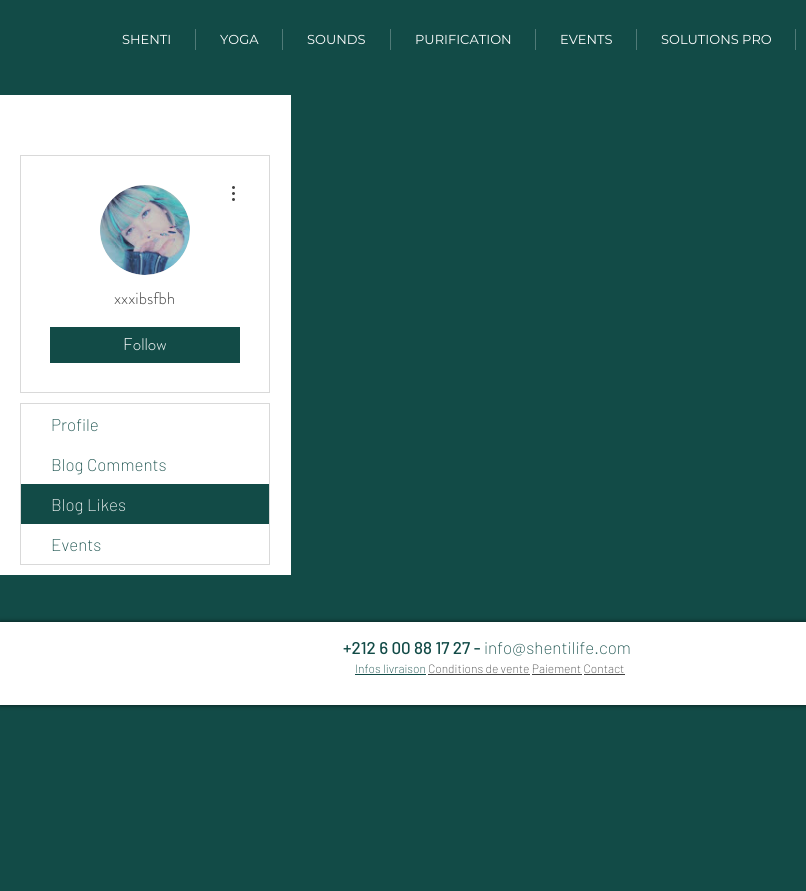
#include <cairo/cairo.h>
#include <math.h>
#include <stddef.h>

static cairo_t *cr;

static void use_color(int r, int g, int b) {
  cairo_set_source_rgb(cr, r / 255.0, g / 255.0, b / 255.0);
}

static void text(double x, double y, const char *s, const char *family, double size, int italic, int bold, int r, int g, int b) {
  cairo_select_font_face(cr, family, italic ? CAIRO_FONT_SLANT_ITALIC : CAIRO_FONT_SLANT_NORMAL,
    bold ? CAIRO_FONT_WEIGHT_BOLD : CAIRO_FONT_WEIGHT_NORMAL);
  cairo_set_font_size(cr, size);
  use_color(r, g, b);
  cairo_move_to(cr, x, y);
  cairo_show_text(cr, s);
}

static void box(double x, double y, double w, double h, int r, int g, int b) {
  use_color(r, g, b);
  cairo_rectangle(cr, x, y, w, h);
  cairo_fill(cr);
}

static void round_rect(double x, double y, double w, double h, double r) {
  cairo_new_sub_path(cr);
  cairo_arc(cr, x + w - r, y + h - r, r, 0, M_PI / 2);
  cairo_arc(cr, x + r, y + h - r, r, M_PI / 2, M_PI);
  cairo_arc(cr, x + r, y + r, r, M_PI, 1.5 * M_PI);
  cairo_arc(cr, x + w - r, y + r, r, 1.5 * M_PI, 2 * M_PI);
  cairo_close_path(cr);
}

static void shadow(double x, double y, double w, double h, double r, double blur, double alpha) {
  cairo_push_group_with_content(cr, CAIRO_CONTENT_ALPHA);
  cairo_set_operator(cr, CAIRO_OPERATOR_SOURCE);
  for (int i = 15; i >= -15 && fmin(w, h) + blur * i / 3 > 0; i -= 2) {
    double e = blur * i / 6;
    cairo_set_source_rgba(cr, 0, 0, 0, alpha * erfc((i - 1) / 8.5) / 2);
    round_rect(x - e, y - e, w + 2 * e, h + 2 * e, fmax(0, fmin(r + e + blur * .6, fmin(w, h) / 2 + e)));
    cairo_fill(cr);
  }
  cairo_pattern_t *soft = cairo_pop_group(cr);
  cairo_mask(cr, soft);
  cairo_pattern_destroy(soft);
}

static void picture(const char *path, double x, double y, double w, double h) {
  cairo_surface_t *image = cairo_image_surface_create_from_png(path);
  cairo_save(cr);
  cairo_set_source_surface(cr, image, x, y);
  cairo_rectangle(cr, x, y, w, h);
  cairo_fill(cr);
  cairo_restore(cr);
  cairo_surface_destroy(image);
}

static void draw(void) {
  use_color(18, 75, 71);
  cairo_paint(cr);
  box(195, 29, 1, 21, 80, 122, 119);
  box(282, 29, 1, 21, 80, 122, 119);
  box(390, 29, 1, 21, 80, 122, 119);
  box(535, 29, 1, 21, 80, 122, 119);
  box(636, 29, 1, 21, 80, 122, 119);
  box(795, 29, 1, 21, 80, 122, 119);
  box(0, 95, 291, 480, 255, 255, 255);
  cairo_rectangle(cr, 20.5, 155.5, 249, 237);
  use_color(217, 217, 217);
  cairo_set_line_width(cr, 1);
  cairo_stroke(cr);
  use_color(216, 216, 216);
  cairo_arc(cr, 145, 230, 45, 0, 2 * M_PI);
  cairo_fill(cr);
  picture("img_01.png", 100, 185, 90, 90);
  picture("img_02.png", 232, 186, 3, 15);
  box(50, 327, 190, 36, 18, 75, 71);
  cairo_rectangle(cr, 20.5, 403.5, 249, 161);
  use_color(217, 217, 217);
  cairo_stroke(cr);
  box(21, 484, 248, 40, 18, 75, 71);
  use_color(0, 0, 0);
  shadow(0, 622, 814, 83, 0, 2.5, 0.7);
  box(0, 622, 806, 83, 255, 255, 255);
  box(355, 674, 71, 1, 18, 75, 71);
  box(428, 674, 102, 1, 65, 65, 65);
  box(532, 674, 50, 1, 65, 65, 65);
  box(584, 674, 41, 1, 65, 65, 65);
  text(122, 44, "SHENTI", "Montserrat", 13, 0, 0, 255, 255, 255);
  text(220, 44, "YOGA", "Montserrat", 13, 0, 0, 255, 255, 255);
  text(307, 44, "SOUNDS", "Montserrat", 13, 0, 0, 255, 255, 255);
  text(415, 44, "PURIFICATION", "Montserrat", 13, 0, 0, 255, 255, 255);
  text(560, 44, "EVENTS", "Montserrat", 13, 0, 0, 255, 255, 255);
  text(661, 44, "SOLUTIONS PRO", "Montserrat", 13, 0, 0, 255, 255, 255);
  text(114, 304, "xxxibsfbh", "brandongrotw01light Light", 17, 0, 0, 65, 65, 65);
  text(123, 350, "Follow", "brandongrotw01light Light", 17, 0, 0, 255, 255, 255);
  text(51, 431, "Profile", "Barlow ExtraLight", 17, 0, 0, 18, 75, 71);
  text(51, 471, "Blog Comments", "Barlow ExtraLight", 17, 0, 0, 18, 75, 71);
  text(51, 511, "Blog Likes", "Barlow ExtraLight", 17, 0, 0, 255, 255, 255);
  text(51, 551, "Events", "Barlow ExtraLight", 17, 0, 0, 18, 75, 71);
  text(343, 654, "+212 6 00 88 17 27 -", "Barlow Medium", 17, 0, 0, 18, 75, 71);
  text(484, 654, "info@shentilife.com", "Barlow ExtraLight", 17, 0, 0, 18, 75, 71);
  text(355, 673, "Infos livraison", "Barlow ExtraLight", 12, 0, 0, 18, 75, 71);
  text(428, 673, "Conditions de vente Paiement Contact", "Barlow ExtraLight", 12, 0, 0, 65, 65, 65);
}

int main(void) {
  cairo_surface_t *surface = cairo_image_surface_create(CAIRO_FORMAT_RGB24, 806, 891);
  cr = cairo_create(surface);
  cairo_font_options_t *options = cairo_font_options_create();
  cairo_font_options_set_hint_metrics(options, CAIRO_HINT_METRICS_OFF);
  cairo_font_options_set_hint_style(options, CAIRO_HINT_STYLE_NONE);
  cairo_set_font_options(cr, options);
  cairo_set_miter_limit(cr, 4);
  draw();
  cairo_surface_write_to_png(surface, "out.png");
  cairo_font_options_destroy(options);
  cairo_destroy(cr);
  cairo_surface_destroy(surface);
  return 0;
}
